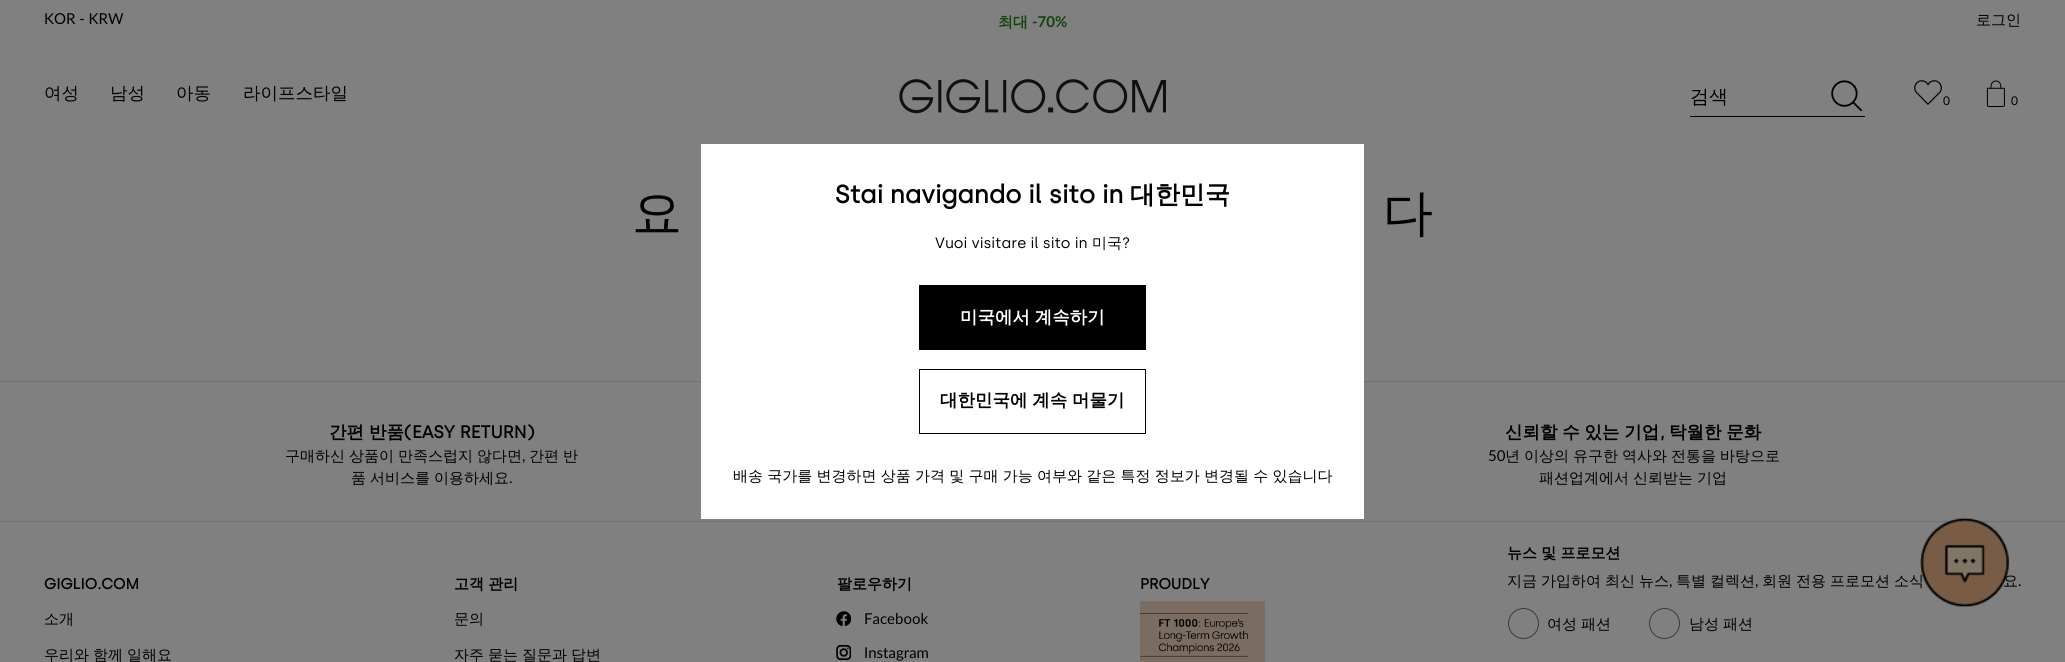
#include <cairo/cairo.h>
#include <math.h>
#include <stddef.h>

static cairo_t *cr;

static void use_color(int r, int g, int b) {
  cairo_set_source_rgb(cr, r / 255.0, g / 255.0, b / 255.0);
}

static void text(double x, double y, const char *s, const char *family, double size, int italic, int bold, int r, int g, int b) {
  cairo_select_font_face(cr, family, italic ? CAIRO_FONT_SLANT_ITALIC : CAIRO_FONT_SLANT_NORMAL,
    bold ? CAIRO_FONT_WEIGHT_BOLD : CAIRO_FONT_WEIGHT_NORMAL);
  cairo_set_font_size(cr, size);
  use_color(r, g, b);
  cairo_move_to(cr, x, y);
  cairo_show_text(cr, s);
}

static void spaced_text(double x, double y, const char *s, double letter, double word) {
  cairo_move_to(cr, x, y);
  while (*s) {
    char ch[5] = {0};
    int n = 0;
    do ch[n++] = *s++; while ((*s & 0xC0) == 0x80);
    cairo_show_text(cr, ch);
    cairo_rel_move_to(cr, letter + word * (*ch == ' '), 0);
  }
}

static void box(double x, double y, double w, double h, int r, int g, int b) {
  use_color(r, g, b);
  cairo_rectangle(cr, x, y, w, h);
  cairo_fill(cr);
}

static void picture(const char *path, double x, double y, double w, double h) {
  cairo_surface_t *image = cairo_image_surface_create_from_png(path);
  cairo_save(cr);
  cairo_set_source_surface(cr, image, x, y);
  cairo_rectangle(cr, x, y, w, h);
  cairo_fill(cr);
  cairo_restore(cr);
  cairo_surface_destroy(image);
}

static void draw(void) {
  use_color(128, 128, 128);
  cairo_paint(cr);
  picture("img_01.png", 899, 79, 267, 35);
  box(1690, 116, 175, 1, 0, 0, 0);
  picture("img_02.png", 1831, 80, 31, 32);
  picture("img_03.png", 1914, 80, 28, 25);
  picture("img_04.png", 1986, 80, 19, 27);
  box(0, 381, 2065, 1, 113, 113, 113);
  box(701, 144, 663, 375, 255, 255, 255);
  box(919, 285, 227, 65, 0, 0, 0);
  cairo_rectangle(cr, 919.5, 369.5, 226, 64);
  cairo_set_line_width(cr, 1);
  cairo_stroke(cr);
  box(0, 521, 2065, 1, 113, 113, 113);
  picture("img_05.png", 836, 611, 15, 15);
  picture("img_06.png", 836, 645, 15, 15);
  picture("img_07.png", 1140, 601, 125, 61);
  cairo_arc(cr, 1523.5, 623.5, 15, 0, 2 * M_PI);
  use_color(59, 59, 59);
  cairo_stroke(cr);
  cairo_arc(cr, 1664.5, 623.5, 15, 0, 2 * M_PI);
  cairo_stroke(cr);
  text(44, 24, "KOR - KRW", "Lato", 15, 0, 0, 0, 0, 0);
  text(998, 27, "최대", "WenQuanYi Zen Hei", 15, 0, 1, 15, 69, 14);
  text(1032, 27, "-70%", "Lato", 15, 0, 1, 15, 69, 14);
  text(1976, 25, "로그인", "WenQuanYi Zen Hei Medium", 15, 0, 0, 0, 0, 0);
  text(44, 99, "여성", "WenQuanYi Zen Hei Medium", 17.5, 0, 0, 0, 0, 0);
  text(110, 99, "남성", "WenQuanYi Zen Hei Medium", 17.5, 0, 0, 0, 0, 0);
  text(176, 99, "아동", "WenQuanYi Zen Hei Medium", 17.5, 0, 0, 0, 0, 0);
  text(243, 99, "라이프스타일", "WenQuanYi Zen Hei Medium", 17.5, 0, 0, 0, 0, 0);
  text(1690, 103, "검색", "WenQuanYi Zen Hei Medium", 19, 0, 0, 0, 0, 0);
  text(1943, 105, "0", "Lato", 12, 0, 0, 0, 0, 0);
  text(2011, 105, "0", "Lato", 12, 0, 0, 0, 0, 0);
  text(835, 203, "Stai navigando il sito in", "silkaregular", 25, 0, 1, 0, 0, 0);
  text(1130, 203, "대한민국", "WenQuanYi Zen Hei", 25, 0, 1, 0, 0, 0);
  text(935, 248, "Vuoi visitare il sito in", "silkaregular", 15, 0, 0, 0, 0, 0);
  text(1092, 248, "미국", "WenQuanYi Zen Hei Medium", 15, 0, 0, 0, 0, 0);
  text(1122, 248, "?", "silkaregular", 15, 0, 0, 0, 0, 0);
  cairo_select_font_face(cr, "WenQuanYi Zen Hei", CAIRO_FONT_SLANT_NORMAL, CAIRO_FONT_WEIGHT_BOLD);
  cairo_set_font_size(cr, 17.5);
  use_color(255, 255, 255);
  spaced_text(960, 323, "미국에서 계속하기", 0, -0.5);
  use_color(0, 0, 0);
  spaced_text(940, 406, "대한민국에 계속 머물기", 0, -0.5);
  cairo_select_font_face(cr, "WenQuanYi Zen Hei Medium", CAIRO_FONT_SLANT_NORMAL, CAIRO_FONT_WEIGHT_NORMAL);
  cairo_set_font_size(cr, 15);
  spaced_text(733, 481, "배송 국가를 변경하면 상품 가격 및 구매 가능 여부와 같은 특정 정보가 변경될 수 있습니다", 0, -0.25);
  cairo_set_font_size(cr, 50);
  spaced_text(632, 230, "요", 0, -2);
  spaced_text(1383, 230, "다", 0, -2);
  text(329, 438, "간편", "WenQuanYi Zen Hei", 17.5, 0, 1, 0, 0, 0);
  text(369, 438, "반품", "WenQuanYi Zen Hei", 17.5, 0, 1, 0, 0, 0);
  text(404, 438, "(EASY RETURN)", "silkaregular", 17.5, 0, 1, 0, 0, 0);
  cairo_select_font_face(cr, "WenQuanYi Zen Hei Medium", CAIRO_FONT_SLANT_NORMAL, CAIRO_FONT_WEIGHT_NORMAL);
  cairo_set_font_size(cr, 15);
  spaced_text(285, 461, "구매하신 상품이 만족스럽지 않다면", 0, -0.5);
  text(522, 461, ",", "Lato", 15, 0, 0, 0, 0, 0);
  cairo_select_font_face(cr, "WenQuanYi Zen Hei Medium", CAIRO_FONT_SLANT_NORMAL, CAIRO_FONT_WEIGHT_NORMAL);
  spaced_text(529, 461, "간편 반", 0, -0.5);
  spaced_text(351, 483, "품 서비스를 이용하세요", 0, -0.5);
  text(509, 483, ".", "Lato", 15, 0, 0, 0, 0, 0);
  cairo_select_font_face(cr, "WenQuanYi Zen Hei", CAIRO_FONT_SLANT_NORMAL, CAIRO_FONT_WEIGHT_BOLD);
  cairo_set_font_size(cr, 17.5);
  spaced_text(1505, 438, "신뢰할 수 있는 기업", 0, -0.5);
  text(1660, 438, ",", "silkaregular", 17.5, 0, 1, 0, 0, 0);
  cairo_select_font_face(cr, "WenQuanYi Zen Hei", CAIRO_FONT_SLANT_NORMAL, CAIRO_FONT_WEIGHT_BOLD);
  spaced_text(1669, 438, "탁월한 문화", 0, -0.5);
  text(1488, 461, "50", "Lato", 15, 0, 0, 0, 0, 0);
  cairo_select_font_face(cr, "WenQuanYi Zen Hei Medium", CAIRO_FONT_SLANT_NORMAL, CAIRO_FONT_WEIGHT_NORMAL);
  spaced_text(1505, 461, "년 이상의 유구한 역사와 전통을 바탕으로", 0, -0.5);
  spaced_text(1539, 483, "패션업계에서 신뢰받는 기업", 0, -0.5);
  text(44, 589, "GIGLIO.COM", "silkaregular", 15, 0, 1, 0, 0, 0);
  text(44, 624, "소개", "WenQuanYi Zen Hei Medium", 15, 0, 0, 0, 0, 0);
  spaced_text(44, 660, "우리와 함께 일해요", 0, -0.5);
  cairo_select_font_face(cr, "WenQuanYi Zen Hei", CAIRO_FONT_SLANT_NORMAL, CAIRO_FONT_WEIGHT_BOLD);
  spaced_text(454, 589, "고객 관리", 0, -0.25);
  text(454, 624, "문의", "WenQuanYi Zen Hei Medium", 15, 0, 0, 0, 0, 0);
  spaced_text(454, 660, "자주 묻는 질문과 답변", 0, -0.5);
  text(837, 589, "팔로우하기", "WenQuanYi Zen Hei", 15, 0, 1, 0, 0, 0);
  text(864, 624, "Facebook", "Lato", 15, 0, 0, 0, 0, 0);
  text(864, 658, "Instagram", "Lato", 15, 0, 0, 0, 0, 0);
  text(1140, 589, "PROUDLY", "silkaregular", 15, 0, 1, 0, 0, 0);
  cairo_select_font_face(cr, "WenQuanYi Zen Hei", CAIRO_FONT_SLANT_NORMAL, CAIRO_FONT_WEIGHT_BOLD);
  spaced_text(1507, 558, "뉴스 및 프로모션", 0, -0.25);
  cairo_select_font_face(cr, "WenQuanYi Zen Hei Medium", CAIRO_FONT_SLANT_NORMAL, CAIRO_FONT_WEIGHT_NORMAL);
  spaced_text(1507, 586, "지금 가입하여 최신 뉴스", 0, -0.5);
  text(1669, 586, ",", "Lato", 15, 0, 0, 0, 0, 0);
  cairo_select_font_face(cr, "WenQuanYi Zen Hei Medium", CAIRO_FONT_SLANT_NORMAL, CAIRO_FONT_WEIGHT_NORMAL);
  spaced_text(1676, 586, "특별 컬렉션", 0, -0.5);
  text(1755, 586, ",", "Lato", 15, 0, 0, 0, 0, 0);
  cairo_select_font_face(cr, "WenQuanYi Zen Hei Medium", CAIRO_FONT_SLANT_NORMAL, CAIRO_FONT_WEIGHT_NORMAL);
  spaced_text(1762, 586, "회원 전용 프로모션 소식", 0, -0.5);
  spaced_text(2003, 586, "요", 0, -0.5);
  text(2018, 586, ".", "Lato", 15, 0, 0, 0, 0, 0);
  cairo_select_font_face(cr, "WenQuanYi Zen Hei Medium", CAIRO_FONT_SLANT_NORMAL, CAIRO_FONT_WEIGHT_NORMAL);
  spaced_text(1547, 629, "여성 패션", 0, -0.5);
  spaced_text(1689, 629, "남성 패션", 0, -0.5);
  picture("img_08.png", 1920, 517, 89, 90);
}

int main(void) {
  cairo_surface_t *surface = cairo_image_surface_create(CAIRO_FORMAT_RGB24, 2065, 662);
  cr = cairo_create(surface);
  cairo_font_options_t *options = cairo_font_options_create();
  cairo_font_options_set_hint_metrics(options, CAIRO_HINT_METRICS_OFF);
  cairo_font_options_set_hint_style(options, CAIRO_HINT_STYLE_NONE);
  cairo_set_font_options(cr, options);
  cairo_set_miter_limit(cr, 4);
  draw();
  cairo_surface_write_to_png(surface, "out.png");
  cairo_font_options_destroy(options);
  cairo_destroy(cr);
  cairo_surface_destroy(surface);
  return 0;
}
